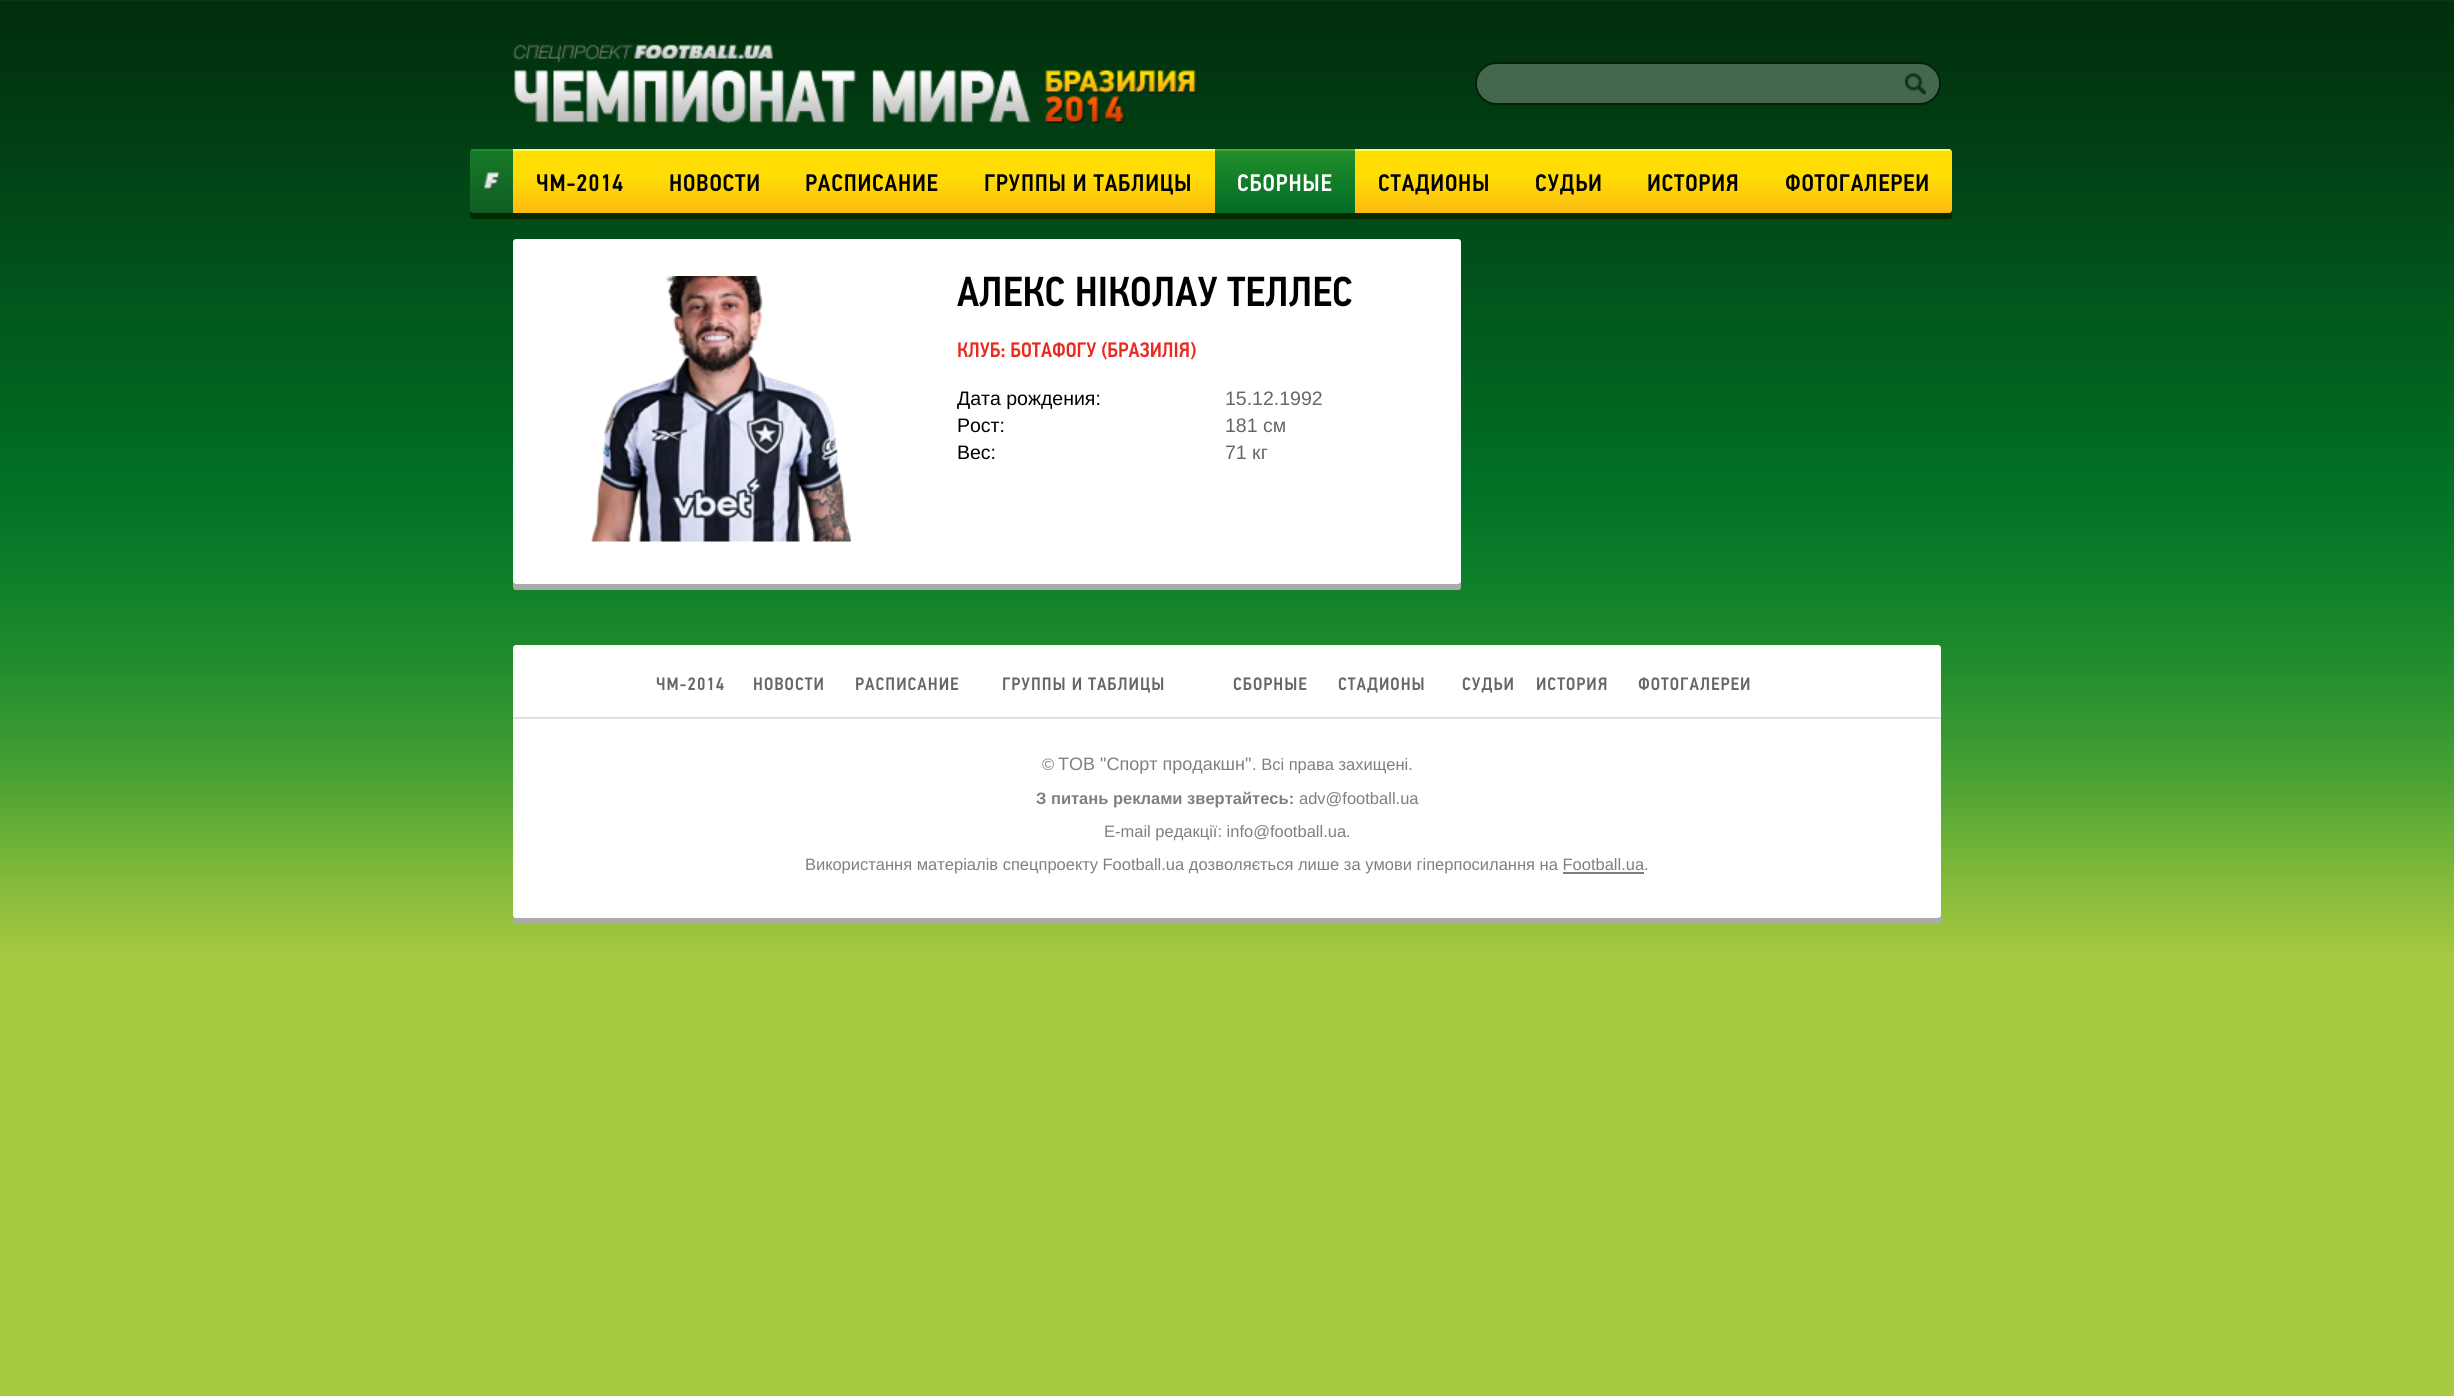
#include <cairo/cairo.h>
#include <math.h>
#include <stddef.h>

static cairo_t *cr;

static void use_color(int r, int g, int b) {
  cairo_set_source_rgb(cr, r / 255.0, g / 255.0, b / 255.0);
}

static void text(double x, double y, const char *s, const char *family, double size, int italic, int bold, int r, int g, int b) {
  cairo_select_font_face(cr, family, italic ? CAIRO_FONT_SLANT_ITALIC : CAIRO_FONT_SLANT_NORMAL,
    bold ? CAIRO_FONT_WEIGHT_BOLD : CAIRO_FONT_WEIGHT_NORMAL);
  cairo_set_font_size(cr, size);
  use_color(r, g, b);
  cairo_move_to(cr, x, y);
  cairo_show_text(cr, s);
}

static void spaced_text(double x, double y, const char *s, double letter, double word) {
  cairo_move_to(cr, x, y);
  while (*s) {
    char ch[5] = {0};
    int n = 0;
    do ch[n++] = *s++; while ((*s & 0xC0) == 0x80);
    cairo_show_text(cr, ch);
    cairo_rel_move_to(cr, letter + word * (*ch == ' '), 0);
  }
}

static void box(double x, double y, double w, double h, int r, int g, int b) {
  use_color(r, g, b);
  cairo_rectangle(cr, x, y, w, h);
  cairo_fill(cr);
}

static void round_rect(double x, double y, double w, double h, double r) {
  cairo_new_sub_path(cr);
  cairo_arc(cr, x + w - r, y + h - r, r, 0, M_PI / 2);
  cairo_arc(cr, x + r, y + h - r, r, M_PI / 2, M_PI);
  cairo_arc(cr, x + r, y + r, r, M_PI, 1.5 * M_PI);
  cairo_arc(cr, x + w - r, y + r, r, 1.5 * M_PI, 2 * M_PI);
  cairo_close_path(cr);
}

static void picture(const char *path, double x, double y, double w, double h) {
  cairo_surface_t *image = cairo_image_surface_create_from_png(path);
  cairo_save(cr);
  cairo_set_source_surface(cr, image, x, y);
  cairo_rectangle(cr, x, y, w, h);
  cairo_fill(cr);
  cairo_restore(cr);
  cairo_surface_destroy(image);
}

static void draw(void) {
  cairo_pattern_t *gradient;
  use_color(167, 201, 65);
  cairo_paint(cr);
  picture("img_01.png", 0, 0, 2454, 952);
  picture("img_02.png", 513, 44, 684, 79);
  use_color(69, 103, 78);
  round_rect(1476, 63, 464, 41, 20.5);
  cairo_fill_preserve(cr);
  use_color(1, 34, 10);
  cairo_stroke(cr);
  picture("img_03.png", 1905, 73, 21, 22);
  use_color(4, 43, 0);
  cairo_new_path(cr);
  cairo_move_to(cr, 470, 212);
  cairo_line_to(cr, 470, 216);
  cairo_curve_to(cr, 470, 218, 471, 219, 473, 219);
  cairo_line_to(cr, 513, 219);
  cairo_line_to(cr, 513, 213);
  cairo_line_to(cr, 472, 213);
  cairo_close_path(cr);
  cairo_fill(cr);
  cairo_save(cr);
  cairo_new_path(cr);
  cairo_move_to(cr, 473, 149);
  cairo_line_to(cr, 513, 149);
  cairo_line_to(cr, 513, 213);
  cairo_line_to(cr, 473, 213);
  cairo_curve_to(cr, 471.5, 213, 470, 211.5, 470, 210);
  cairo_line_to(cr, 470, 152);
  cairo_curve_to(cr, 470, 150.5, 471.5, 149, 473, 149);
  cairo_close_path(cr);
  cairo_clip(cr);
  gradient = cairo_pattern_create_linear(491, 150, 491, 213);
  cairo_pattern_add_color_stop_rgba(gradient, 0, 0.086, 0.478, 0.149, 1);
  cairo_pattern_add_color_stop_rgba(gradient, 1, 0.071, 0.365, 0.145, 1);
  cairo_set_source(cr, gradient);
  cairo_pattern_destroy(gradient);
  cairo_new_path(cr);
  cairo_move_to(cr, 470, 150);
  cairo_line_to(cr, 513, 150);
  cairo_line_to(cr, 513, 213);
  cairo_line_to(cr, 473, 213);
  cairo_curve_to(cr, 471.5, 213, 470, 211.5, 470, 210);
  cairo_close_path(cr);
  cairo_fill(cr);
  cairo_restore(cr);
  box(471, 149, 42, 2, 31, 143, 50);
  picture("img_04.png", 484, 172, 16, 17);
  use_color(4, 43, 0);
  cairo_new_path(cr);
  cairo_move_to(cr, 513, 213);
  cairo_line_to(cr, 513, 219);
  cairo_line_to(cr, 1949, 219);
  cairo_curve_to(cr, 1951, 219, 1952, 218, 1952, 216);
  cairo_line_to(cr, 1952, 158);
  cairo_line_to(cr, 1952, 156);
  cairo_line_to(cr, 1952, 210);
  cairo_curve_to(cr, 1952, 212, 1950, 213, 1948, 213);
  cairo_close_path(cr);
  cairo_fill(cr);
  gradient = cairo_pattern_create_linear(1232, 148, 1232, 213);
  cairo_pattern_add_color_stop_rgba(gradient, 0, 1, 0.867, 0.016, 1);
  cairo_pattern_add_color_stop_rgba(gradient, 0.45, 1, 0.867, 0.016, 1);
  cairo_pattern_add_color_stop_rgba(gradient, 1, 0.988, 0.729, 0.071, 1);
  cairo_set_source(cr, gradient);
  cairo_pattern_destroy(gradient);
  cairo_new_path(cr);
  cairo_move_to(cr, 513, 149);
  cairo_line_to(cr, 1949, 149);
  cairo_curve_to(cr, 1950.5, 149, 1952, 150.5, 1952, 152);
  cairo_line_to(cr, 1952, 210);
  cairo_curve_to(cr, 1952, 211.5, 1950.5, 213, 1949, 213);
  cairo_line_to(cr, 513, 213);
  cairo_close_path(cr);
  cairo_fill(cr);
  box(513, 149, 702, 2, 255, 255, 94);
  gradient = cairo_pattern_create_linear(1285, 150, 1285, 213);
  cairo_pattern_add_color_stop_rgba(gradient, 0, 0.137, 0.561, 0.18, 1);
  cairo_pattern_add_color_stop_rgba(gradient, 1, 0.004, 0.424, 0.137, 1);
  cairo_set_source(cr, gradient);
  cairo_pattern_destroy(gradient);
  cairo_rectangle(cr, 1215, 151, 140, 62);
  cairo_fill(cr);
  box(1215, 149, 140, 2, 80, 165, 53);
  box(1355, 149, 595, 2, 255, 255, 94);
  use_color(170, 170, 170);
  cairo_new_path(cr);
  cairo_move_to(cr, 513, 580);
  cairo_line_to(cr, 513, 587);
  cairo_curve_to(cr, 513, 589, 514, 590, 516, 590);
  cairo_line_to(cr, 1458, 590);
  cairo_curve_to(cr, 1460, 590, 1461, 589, 1461, 587);
  cairo_line_to(cr, 1461, 580);
  cairo_curve_to(cr, 1461, 582, 1460, 584, 1458, 584);
  cairo_line_to(cr, 516, 584);
  cairo_curve_to(cr, 514, 584, 513, 582, 513, 580);
  cairo_close_path(cr);
  cairo_fill(cr);
  use_color(255, 255, 255);
  round_rect(513, 239, 948, 345, 3);
  cairo_fill(cr);
  picture("img_05.png", 590, 276, 262, 266);
  use_color(170, 170, 170);
  cairo_new_path(cr);
  cairo_move_to(cr, 513, 915);
  cairo_line_to(cr, 513, 921);
  cairo_curve_to(cr, 513, 923, 514, 924, 516, 924);
  cairo_line_to(cr, 1938, 924);
  cairo_curve_to(cr, 1940, 924, 1941, 923, 1941, 921);
  cairo_line_to(cr, 1941, 915);
  cairo_curve_to(cr, 1941, 917, 1940, 918, 1938, 918);
  cairo_line_to(cr, 516, 918);
  cairo_curve_to(cr, 514, 918, 513, 917, 513, 915);
  cairo_close_path(cr);
  cairo_fill(cr);
  use_color(255, 255, 255);
  round_rect(513, 645, 1428, 273, 3);
  cairo_fill(cr);
  box(513, 717, 1428, 2, 223, 223, 223);
  box(1563, 872, 81, 2, 127, 127, 127);
  cairo_select_font_face(cr, "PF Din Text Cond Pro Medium", CAIRO_FONT_SLANT_NORMAL, CAIRO_FONT_WEIGHT_NORMAL);
  cairo_set_font_size(cr, 24);
  use_color(0, 0, 0);
  spaced_text(536, 191, "ЧМ-2014", 0.75, 0);
  spaced_text(669, 191, "НОВОСТИ", 0.75, 0);
  spaced_text(805, 191, "РАСПИСАНИЕ", 0.75, 0);
  spaced_text(984, 191, "ГРУППЫ И ТАБЛИЦЫ", 0.75, 0);
  use_color(255, 255, 255);
  spaced_text(1237, 191, "СБОРНЫЕ", 0.75, 0);
  use_color(0, 0, 0);
  spaced_text(1378, 191, "СТАДИОНЫ", 0.75, 0);
  spaced_text(1535, 191, "СУДЬИ", 0.75, 0);
  spaced_text(1647, 191, "ИСТОРИЯ", 0.75, 0);
  spaced_text(1785, 191, "ФОТОГАЛЕРЕИ", 0.75, 0);
  text(957, 306, "АЛЕКС НІКОЛАУ ТЕЛЛЕС", "PF Din Text Cond Pro Medium", 42, 0, 0, 0, 0, 0);
  text(957, 357, "КЛУБ: БОТАФОГУ (БРАЗИЛІЯ)", "PF Din Text Cond Pro Medium", 21, 0, 0, 232, 43, 33);
  text(957, 405, "Дата рождения:", "Liberation Sans", 19.5, 0, 0, 0, 0, 0);
  text(1225, 405, "15.12.1992", "Liberation Sans", 19.5, 0, 0, 102, 102, 102);
  text(957, 432, "Рост:", "Liberation Sans", 19.5, 0, 0, 0, 0, 0);
  text(1225, 432, "181 см", "Liberation Sans", 19.5, 0, 0, 102, 102, 102);
  text(957, 459, "Вес:", "Liberation Sans", 19.5, 0, 0, 0, 0, 0);
  text(1225, 459, "71 кг", "Liberation Sans", 19.5, 0, 0, 102, 102, 102);
  cairo_select_font_face(cr, "PF Din Text Cond Pro Medium", CAIRO_FONT_SLANT_NORMAL, CAIRO_FONT_WEIGHT_NORMAL);
  cairo_set_font_size(cr, 18);
  spaced_text(656, 690, "ЧМ-2014", 1, 0);
  spaced_text(753, 690, "НОВОСТИ", 1, 0);
  spaced_text(855, 690, "РАСПИСАНИЕ", 1, 0);
  spaced_text(1002, 690, "ГРУППЫ И ТАБЛИЦЫ", 1, 0);
  spaced_text(1233, 690, "СБОРНЫЕ", 1, 0);
  spaced_text(1338, 690, "СТАДИОНЫ", 1, 0);
  spaced_text(1462, 690, "СУДЬИ", 1, 0);
  spaced_text(1536, 690, "ИСТОРИЯ", 1, 0);
  spaced_text(1638, 690, "ФОТОГАЛЕРЕИ", 1, 0);
  text(1042, 770, "©", "Liberation Sans", 16.5, 0, 0, 127, 127, 127);
  text(1058, 770, "ТОВ \"Спорт продакшн\"", "Liberation Sans", 18, 0, 0, 127, 127, 127);
  text(1252, 770, ". Всі права захищені.", "Liberation Sans", 16.5, 0, 0, 127, 127, 127);
  text(1036, 804, "З питань реклами звертайтесь:", "Liberation Sans", 16.5, 0, 1, 127, 127, 127);
  text(1299, 804, "adv@football.ua", "Liberation Sans", 16.5, 0, 0, 127, 127, 127);
  text(1104, 837, "E-mail редакції: info@football.ua.", "Liberation Sans", 16.5, 0, 0, 127, 127, 127);
  text(805, 870, "Використання матеріалів спецпроекту Football.ua дозволяється лише за умови гіперпосилання на Football.ua.", "Liberation Sans", 16.5, 0, 0, 127, 127, 127);
}

int main(void) {
  cairo_surface_t *surface = cairo_image_surface_create(CAIRO_FORMAT_RGB24, 2454, 1396);
  cr = cairo_create(surface);
  cairo_font_options_t *options = cairo_font_options_create();
  cairo_font_options_set_hint_metrics(options, CAIRO_HINT_METRICS_OFF);
  cairo_font_options_set_hint_style(options, CAIRO_HINT_STYLE_NONE);
  cairo_set_font_options(cr, options);
  cairo_set_miter_limit(cr, 4);
  draw();
  cairo_surface_write_to_png(surface, "out.png");
  cairo_font_options_destroy(options);
  cairo_destroy(cr);
  cairo_surface_destroy(surface);
  return 0;
}
